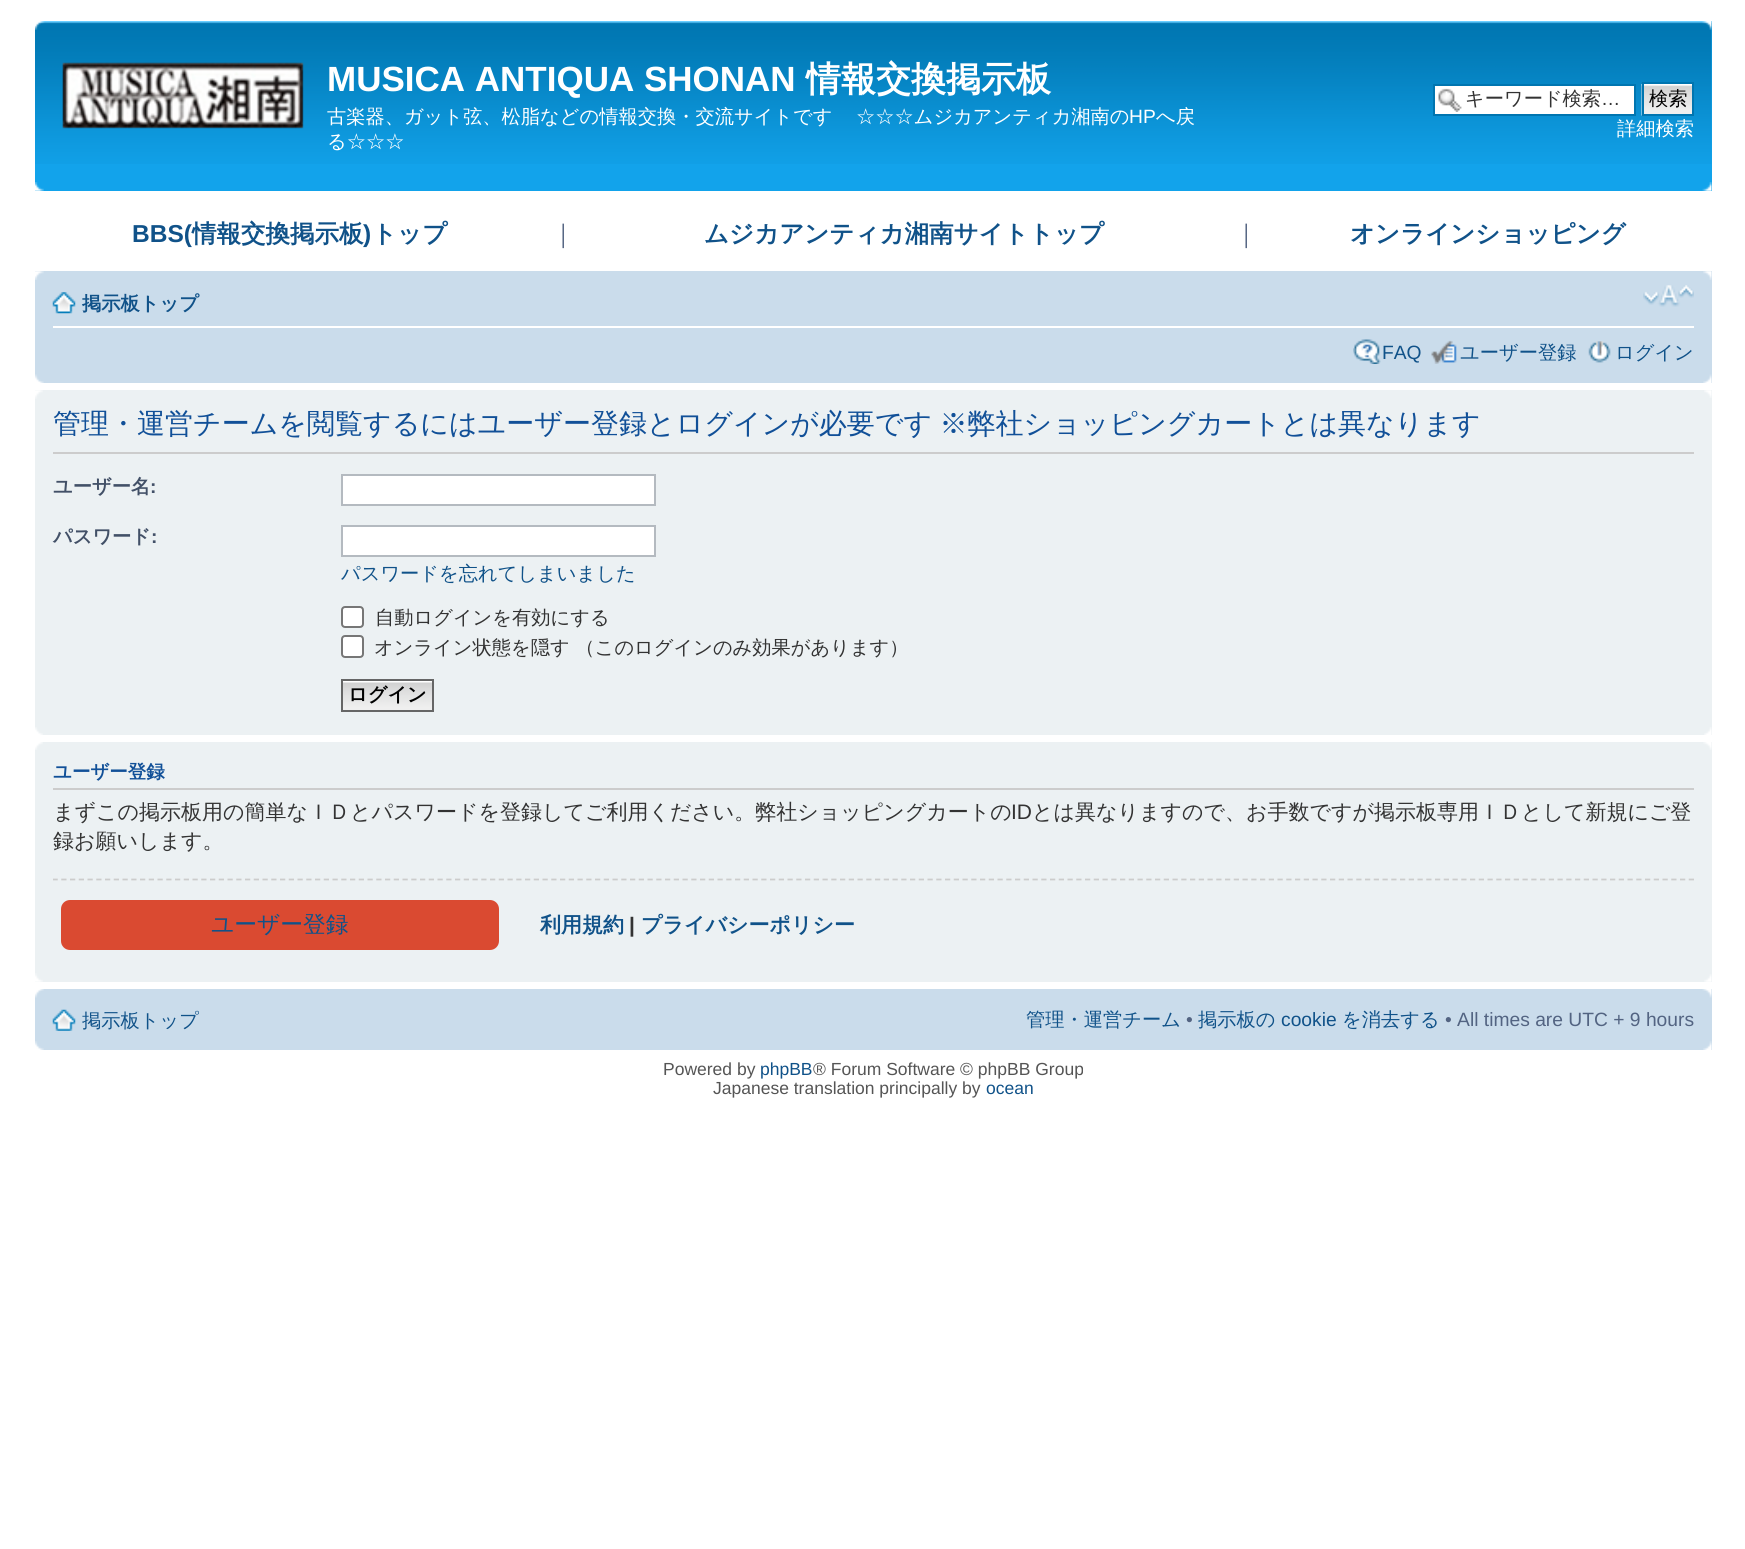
#include <cairo/cairo.h>
#include <math.h>
#include <stddef.h>

static cairo_t *cr;

static void use_color(int r, int g, int b) {
  cairo_set_source_rgb(cr, r / 255.0, g / 255.0, b / 255.0);
}

static void text(double x, double y, const char *s, const char *family, double size, int italic, int bold, int r, int g, int b) {
  cairo_select_font_face(cr, family, italic ? CAIRO_FONT_SLANT_ITALIC : CAIRO_FONT_SLANT_NORMAL,
    bold ? CAIRO_FONT_WEIGHT_BOLD : CAIRO_FONT_WEIGHT_NORMAL);
  cairo_set_font_size(cr, size);
  use_color(r, g, b);
  cairo_move_to(cr, x, y);
  cairo_show_text(cr, s);
}

static void spaced_text(double x, double y, const char *s, double letter, double word) {
  cairo_move_to(cr, x, y);
  while (*s) {
    char ch[5] = {0};
    int n = 0;
    do ch[n++] = *s++; while ((*s & 0xC0) == 0x80);
    cairo_show_text(cr, ch);
    cairo_rel_move_to(cr, letter + word * (*ch == ' '), 0);
  }
}

static void box(double x, double y, double w, double h, int r, int g, int b) {
  use_color(r, g, b);
  cairo_rectangle(cr, x, y, w, h);
  cairo_fill(cr);
}

static void round_rect(double x, double y, double w, double h, double r) {
  cairo_new_sub_path(cr);
  cairo_arc(cr, x + w - r, y + h - r, r, 0, M_PI / 2);
  cairo_arc(cr, x + r, y + h - r, r, M_PI / 2, M_PI);
  cairo_arc(cr, x + r, y + r, r, M_PI, 1.5 * M_PI);
  cairo_arc(cr, x + w - r, y + r, r, 1.5 * M_PI, 2 * M_PI);
  cairo_close_path(cr);
}

static void picture(const char *path, double x, double y, double w, double h) {
  cairo_surface_t *image = cairo_image_surface_create_from_png(path);
  cairo_save(cr);
  cairo_set_source_surface(cr, image, x, y);
  cairo_rectangle(cr, x, y, w, h);
  cairo_fill(cr);
  cairo_restore(cr);
  cairo_surface_destroy(image);
}

static void draw(void) {
  use_color(255, 255, 255);
  cairo_paint(cr);
  box(35, 21, 1677, 170, 18, 163, 235);
  picture("img_01.png", 35, 21, 1677, 143);
  picture("img_02.png", 35, 21, 10, 9);
  picture("img_03.png", 1702, 21, 10, 9);
  picture("img_04.png", 62, 62, 242, 67);
  box(1435, 86, 199, 28, 255, 255, 255);
  picture("img_05.png", 1438, 88, 24, 24);
  cairo_rectangle(cr, 1434, 85, 201, 30);
  use_color(0, 117, 176);
  cairo_stroke(cr);
  picture("img_06.png", 1641, 84, 51, 32);
  cairo_rectangle(cr, 1643, 83, 50, 32);
  cairo_stroke(cr);
  picture("img_07.png", 35, 182, 9, 9);
  picture("img_08.png", 1702, 182, 10, 9);
  box(35, 271, 1677, 112, 202, 220, 235);
  picture("img_09.png", 35, 271, 9, 9);
  picture("img_10.png", 1703, 271, 9, 9);
  box(53, 326, 1641, 2, 255, 255, 255);
  picture("img_11.png", 52, 292, 24, 22);
  picture("img_12.png", 1643, 285, 51, 22);
  picture("img_13.png", 1353, 339, 28, 25);
  picture("img_14.png", 1431, 340, 26, 24);
  picture("img_15.png", 1588, 341, 23, 22);
  picture("img_16.png", 35, 374, 9, 9);
  picture("img_17.png", 1703, 374, 9, 9);
  box(35, 390, 1677, 345, 236, 241, 243);
  picture("img_18.png", 35, 390, 8, 9);
  picture("img_19.png", 1704, 390, 8, 8);
  box(53, 452, 1641, 2, 204, 204, 204);
  use_color(255, 255, 255);
  cairo_rectangle(cr, 342, 475, 313, 30);
  cairo_fill_preserve(cr);
  use_color(180, 186, 192);
  cairo_stroke(cr);
  use_color(255, 255, 255);
  cairo_rectangle(cr, 342, 526, 313, 30);
  cairo_fill_preserve(cr);
  use_color(180, 186, 192);
  cairo_stroke(cr);
  use_color(255, 255, 255);
  round_rect(342, 607, 21, 20, 3);
  cairo_fill_preserve(cr);
  use_color(118, 118, 118);
  cairo_stroke(cr);
  use_color(255, 255, 255);
  round_rect(342, 636, 21, 21, 3);
  cairo_fill_preserve(cr);
  use_color(118, 118, 118);
  cairo_stroke(cr);
  picture("img_20.png", 343, 681, 89, 29);
  cairo_rectangle(cr, 342, 680, 91, 31);
  use_color(102, 102, 102);
  cairo_stroke(cr);
  picture("img_21.png", 35, 727, 8, 8);
  picture("img_22.png", 1704, 727, 8, 8);
  box(35, 742, 1677, 240, 236, 241, 243);
  picture("img_23.png", 35, 742, 8, 8);
  picture("img_24.png", 1703, 742, 9, 8);
  box(53, 788, 1641, 2, 204, 204, 204);
  cairo_save(cr);
  cairo_rectangle(cr, 53, 751, 1641, 222);
  cairo_clip(cr);
  cairo_new_path(cr);
  cairo_move_to(cr, 52.5, 879.5);
  cairo_line_to(cr, 1694, 879.5);
  cairo_set_line_width(cr, 1.8);
  cairo_set_dash(cr, (double[]){5.25, 3.5}, 2, 0);
  cairo_stroke(cr);
  cairo_restore(cr);
  use_color(218, 74, 49);
  round_rect(61, 900, 438, 50, 9);
  cairo_fill(cr);
  picture("img_25.png", 35, 973, 8, 9);
  picture("img_26.png", 1704, 974, 8, 8);
  box(35, 989, 1677, 61, 202, 220, 235);
  picture("img_27.png", 35, 989, 9, 9);
  picture("img_28.png", 1702, 989, 10, 9);
  picture("img_29.png", 52, 1009, 24, 22);
  picture("img_30.png", 35, 1041, 9, 9);
  picture("img_31.png", 1703, 1041, 9, 9);
  text(327, 91, "MUSICA ANTIQUA SHONAN", "Liberation Sans", 35, 0, 1, 255, 255, 255);
  text(806, 91, "情報交換掲示板", "WenQuanYi Zen Hei", 35, 0, 1, 255, 255, 255);
  text(327, 123, "古楽器、ガット弦、松脂などの情報交換・交流サイトです", "WenQuanYi Zen Hei Medium", 19.25, 0, 0, 255, 255, 255);
  text(856, 123, "☆☆☆ムジカアンティカ湘南の", "WenQuanYi Zen Hei Medium", 19.25, 0, 0, 255, 255, 255);
  text(1129, 123, "HP", "Liberation Sans", 19.25, 0, 0, 255, 255, 255);
  text(1156, 123, "へ戻", "WenQuanYi Zen Hei Medium", 19.25, 0, 0, 255, 255, 255);
  text(327, 148, "る☆☆☆", "WenQuanYi Zen Hei Medium", 19.25, 0, 0, 255, 255, 255);
  text(1465, 105, "キーワード検索", "WenQuanYi Zen Hei Medium", 19.25, 0, 0, 51, 51, 51);
  text(1601, 105, "…", "Liberation Sans", 19.25, 0, 0, 51, 51, 51);
  text(1649, 105, "検索", "WenQuanYi Zen Hei Medium", 19.25, 0, 0, 0, 0, 0);
  text(1617, 135, "詳細検索", "WenQuanYi Zen Hei Medium", 19.25, 0, 0, 255, 255, 255);
  text(132, 242, "BBS(", "Liberation Sans", 24.5, 0, 1, 16, 82, 137);
  text(192, 242, "情報交換掲示板", "WenQuanYi Zen Hei", 24.5, 0, 1, 16, 82, 137);
  text(363, 242, ")", "Liberation Sans", 24.5, 0, 1, 16, 82, 137);
  text(372, 242, "トップ", "WenQuanYi Zen Hei", 24.5, 0, 1, 16, 82, 137);
  text(551, 242, "｜", "WenQuanYi Zen Hei Medium", 24.5, 0, 0, 83, 100, 130);
  text(704, 242, "ムジカアンティカ湘南サイトトップ", "WenQuanYi Zen Hei", 24.5, 0, 1, 16, 82, 137);
  text(1234, 242, "｜", "WenQuanYi Zen Hei Medium", 24.5, 0, 0, 83, 100, 130);
  text(1350, 242, "オンラインショッピング", "WenQuanYi Zen Hei", 24.5, 0, 1, 16, 82, 137);
  text(82, 310, "掲示板トップ", "WenQuanYi Zen Hei", 19.25, 0, 1, 16, 82, 137);
  text(1382, 359, "FAQ", "Liberation Sans", 19.25, 0, 0, 16, 82, 137);
  text(1460, 359, "ユーザー登録", "WenQuanYi Zen Hei Medium", 19.25, 0, 0, 16, 82, 137);
  text(1615, 359, "ログイン", "WenQuanYi Zen Hei Medium", 19.25, 0, 0, 16, 82, 137);
  cairo_set_font_size(cr, 28);
  use_color(17, 80, 152);
  spaced_text(53, 433, "管理・運営チームを閲覧するにはユーザー登録とログインが必要です ※弊社ショッピングカートとは異なります", 0, -1);
  text(53, 493, "ユーザー名", "WenQuanYi Zen Hei", 19.25, 0, 1, 66, 80, 103);
  text(150, 493, ":", "Liberation Sans", 19.25, 0, 1, 66, 80, 103);
  text(53, 543, "パスワード", "WenQuanYi Zen Hei", 19.25, 0, 1, 66, 80, 103);
  text(151, 543, ":", "Liberation Sans", 19.25, 0, 1, 66, 80, 103);
  text(341, 580, "パスワードを忘れてしまいました", "WenQuanYi Zen Hei Medium", 19.25, 0, 0, 16, 82, 137);
  text(375, 624, "自動ログインを有効にする", "WenQuanYi Zen Hei Medium", 19.25, 0, 0, 51, 51, 51);
  text(374, 654, "オンライン状態を隠す （このログインのみ効果があります）", "WenQuanYi Zen Hei Medium", 19.25, 0, 0, 51, 51, 51);
  text(348, 701, "ログイン", "WenQuanYi Zen Hei", 19.25, 0, 1, 0, 0, 0);
  text(53, 778, "ユーザー登録", "WenQuanYi Zen Hei", 18.5, 0, 1, 17, 80, 152);
  text(53, 819, "まずこの掲示板用の簡単なＩＤとパスワードを登録してご利用ください。弊社ショッピングカートの", "WenQuanYi Zen Hei Medium", 21, 0, 0, 51, 51, 51);
  text(1011, 819, "ID", "Liberation Sans", 21, 0, 0, 51, 51, 51);
  text(1032, 819, "とは異なりますので、お手数ですが掲示板専用ＩＤとして新規にご登", "WenQuanYi Zen Hei Medium", 21, 0, 0, 51, 51, 51);
  text(53, 848, "録お願いします。", "WenQuanYi Zen Hei Medium", 21, 0, 0, 51, 51, 51);
  text(211, 932, "ユーザー登録", "WenQuanYi Zen Hei Medium", 22.75, 0, 0, 16, 82, 137);
  text(540, 932, "利用規約", "WenQuanYi Zen Hei", 21, 0, 1, 16, 82, 137);
  text(629, 932, "|", "Liberation Sans", 21, 0, 1, 51, 51, 51);
  text(641, 932, "プライバシーポリシー", "WenQuanYi Zen Hei", 21, 0, 1, 16, 82, 137);
  text(82, 1027, "掲示板トップ", "WenQuanYi Zen Hei Medium", 19.25, 0, 0, 16, 82, 137);
  text(1026, 1026, "管理・運営チーム", "WenQuanYi Zen Hei Medium", 19.25, 0, 0, 16, 82, 137);
  text(1186, 1026, "•", "Liberation Sans", 19.25, 0, 0, 83, 100, 130);
  text(1198, 1026, "掲示板の", "WenQuanYi Zen Hei Medium", 19.25, 0, 0, 16, 82, 137);
  text(1281, 1026, "cookie", "Liberation Sans", 19.25, 0, 0, 16, 82, 137);
  text(1342, 1026, "を消去する", "WenQuanYi Zen Hei Medium", 19.25, 0, 0, 16, 82, 137);
  text(1445, 1026, "• All times are UTC + 9 hours", "Liberation Sans", 19.25, 0, 0, 83, 100, 130);
  text(663, 1075, "Powered by", "Liberation Sans", 17.5, 0, 0, 85, 85, 85);
  text(760, 1075, "phpBB", "Liberation Sans", 17.5, 0, 0, 16, 82, 137);
  text(813, 1075, "® Forum Software © phpBB Group", "Liberation Sans", 17.5, 0, 0, 85, 85, 85);
  text(713, 1094, "Japanese translation principally by", "Liberation Sans", 17.5, 0, 0, 85, 85, 85);
  text(986, 1094, "ocean", "Liberation Sans", 17.5, 0, 0, 16, 82, 137);
}

int main(void) {
  cairo_surface_t *surface = cairo_image_surface_create(CAIRO_FORMAT_RGB24, 1745, 1549);
  cr = cairo_create(surface);
  cairo_font_options_t *options = cairo_font_options_create();
  cairo_font_options_set_hint_metrics(options, CAIRO_HINT_METRICS_OFF);
  cairo_font_options_set_hint_style(options, CAIRO_HINT_STYLE_NONE);
  cairo_set_font_options(cr, options);
  cairo_set_miter_limit(cr, 4);
  draw();
  cairo_surface_write_to_png(surface, "out.png");
  cairo_font_options_destroy(options);
  cairo_destroy(cr);
  cairo_surface_destroy(surface);
  return 0;
}
